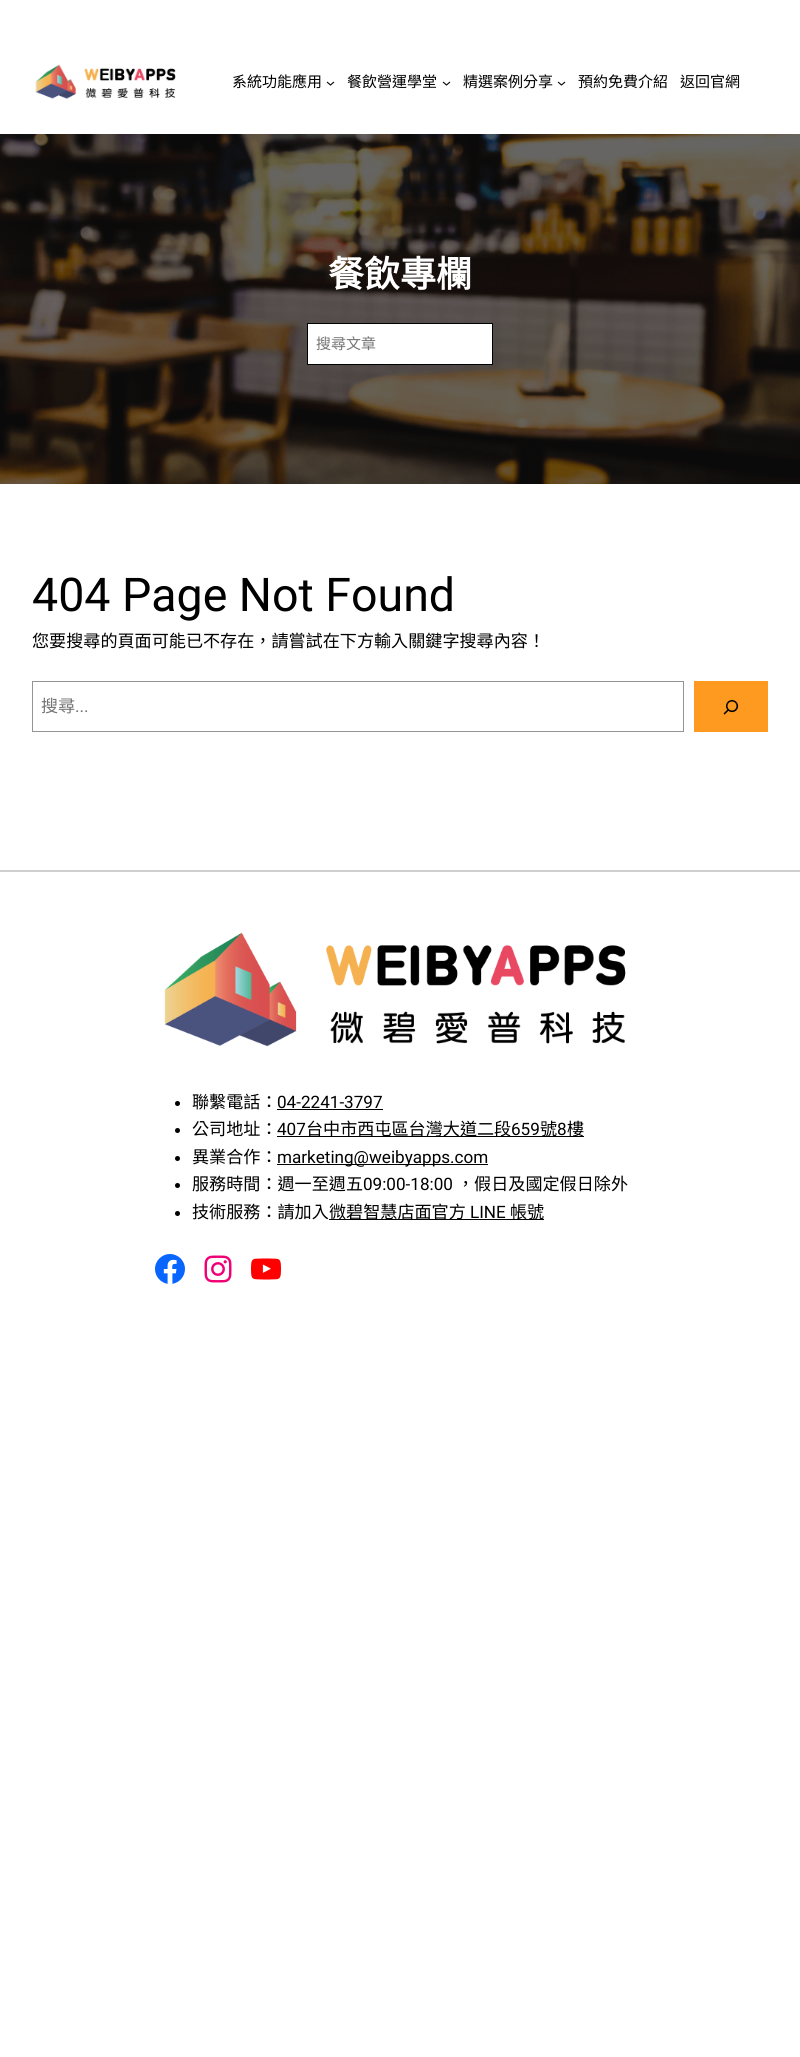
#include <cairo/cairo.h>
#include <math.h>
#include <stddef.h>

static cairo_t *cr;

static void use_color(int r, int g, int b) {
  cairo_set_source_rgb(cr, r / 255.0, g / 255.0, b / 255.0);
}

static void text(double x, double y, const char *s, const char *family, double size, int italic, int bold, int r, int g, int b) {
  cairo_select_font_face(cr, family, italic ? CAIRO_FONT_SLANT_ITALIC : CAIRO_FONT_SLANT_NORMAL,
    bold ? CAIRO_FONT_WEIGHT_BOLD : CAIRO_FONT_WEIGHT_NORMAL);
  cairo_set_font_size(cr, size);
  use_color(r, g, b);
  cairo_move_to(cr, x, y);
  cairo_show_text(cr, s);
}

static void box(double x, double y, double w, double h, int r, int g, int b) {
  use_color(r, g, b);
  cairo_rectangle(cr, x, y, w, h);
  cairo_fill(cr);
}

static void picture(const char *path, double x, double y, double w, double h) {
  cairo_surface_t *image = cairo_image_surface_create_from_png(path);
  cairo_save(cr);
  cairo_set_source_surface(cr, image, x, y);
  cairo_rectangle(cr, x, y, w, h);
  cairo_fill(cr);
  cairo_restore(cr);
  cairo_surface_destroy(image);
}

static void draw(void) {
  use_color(255, 255, 255);
  cairo_paint(cr);
  picture("img_01.png", 35, 64, 141, 35);
  cairo_new_path(cr);
  cairo_move_to(cr, 327, 82);
  cairo_line_to(cr, 330.5, 85);
  cairo_line_to(cr, 334, 82);
  use_color(0, 0, 0);
  cairo_set_line_width(cr, 1.1);
  cairo_stroke(cr);
  cairo_new_path(cr);
  cairo_move_to(cr, 443, 82);
  cairo_line_to(cr, 446.5, 85);
  cairo_line_to(cr, 450, 82);
  cairo_stroke(cr);
  cairo_new_path(cr);
  cairo_move_to(cr, 558, 82);
  cairo_line_to(cr, 561.5, 85);
  cairo_line_to(cr, 565, 82);
  cairo_stroke(cr);
  picture("img_02.png", 0, 134, 800, 350);
  use_color(255, 255, 255);
  cairo_rectangle(cr, 307.5, 323.5, 185, 41);
  cairo_fill_preserve(cr);
  use_color(0, 0, 0);
  cairo_set_line_width(cr, 1);
  cairo_stroke(cr);
  cairo_rectangle(cr, 32.5, 681.5, 651, 50);
  use_color(148, 148, 148);
  cairo_stroke(cr);
  box(694, 681, 74, 51, 255, 154, 33);
  picture("img_03.png", 723, 700, 16, 15);
  box(0, 870, 800, 2, 207, 207, 207);
  picture("img_04.png", 164, 932, 462, 115);
  use_color(0, 0, 0);
  cairo_arc(cr, 177.5, 1103.5, 2.5, 0, 2 * M_PI);
  cairo_fill(cr);
  box(277, 1109, 106, 1, 0, 0, 0);
  cairo_arc(cr, 177.5, 1130.5, 2.5, 0, 2 * M_PI);
  cairo_fill(cr);
  box(277, 1136, 307, 1, 0, 0, 0);
  cairo_arc(cr, 177.5, 1158.5, 2.5, 0, 2 * M_PI);
  cairo_fill(cr);
  box(277, 1164, 211, 1, 0, 0, 0);
  cairo_arc(cr, 177.5, 1185.5, 2.5, 0, 2 * M_PI);
  cairo_fill(cr);
  cairo_arc(cr, 177.5, 1213.5, 2.5, 0, 2 * M_PI);
  cairo_fill(cr);
  box(329, 1219, 215, 1, 0, 0, 0);
  picture("img_05.png", 155, 1254, 30, 30);
  picture("img_06.png", 204, 1255, 28, 28);
  picture("img_07.png", 251, 1258, 30, 22);
  text(232, 87, "系統功能應用", "Noto Sans CJK TC", 15, 0, 0, 0, 0, 0);
  text(347, 87, "餐飲營運學堂", "Noto Sans CJK TC", 15, 0, 0, 0, 0, 0);
  text(463, 87, "精選案例分享", "Noto Sans CJK TC", 15, 0, 0, 0, 0, 0);
  text(578, 87, "預約免費介紹", "Noto Sans CJK TC", 15, 0, 0, 0, 0, 0);
  text(680, 87, "返回官網", "Noto Sans CJK TC", 15, 0, 0, 0, 0, 0);
  text(328, 287, "餐飲專欄", "Noto Sans CJK TC", 36, 0, 1, 255, 255, 255);
  text(316, 349, "搜尋文章", "Noto Sans CJK TC", 15, 0, 0, 117, 117, 117);
  text(32, 611, "404 Page Not Found", "Roboto", 46.5, 0, 0, 0, 0, 0);
  text(32, 647, "您要搜尋的頁面可能已不存在，請嘗試在下方輸入關鍵字搜尋內容！", "Noto Sans CJK TC", 17.1, 0, 0, 0, 0, 0);
  text(41, 712, "搜尋", "Noto Sans CJK TC", 17.1, 0, 0, 117, 117, 117);
  text(75, 712, "...", "Roboto", 17.1, 0, 0, 117, 117, 117);
  text(192, 1108, "聯繫電話：", "Noto Sans CJK TC", 17.1, 0, 0, 0, 0, 0);
  text(277, 1108, "04-2241-3797", "Roboto", 17.1, 0, 0, 0, 0, 0);
  text(192, 1135, "公司地址：", "Noto Sans CJK TC", 17.1, 0, 0, 0, 0, 0);
  text(277, 1135, "407", "Roboto", 17.1, 0, 0, 0, 0, 0);
  text(306, 1135, "台中市西屯區台灣大道二段", "Noto Sans CJK TC", 17.1, 0, 0, 0, 0, 0);
  text(511, 1135, "659", "Roboto", 17.1, 0, 0, 0, 0, 0);
  text(540, 1135, "號", "Noto Sans CJK TC", 17.1, 0, 0, 0, 0, 0);
  text(557, 1135, "8", "Roboto", 17.1, 0, 0, 0, 0, 0);
  text(567, 1135, "樓", "Noto Sans CJK TC", 17.1, 0, 0, 0, 0, 0);
  text(192, 1163, "異業合作：", "Noto Sans CJK TC", 17.1, 0, 0, 0, 0, 0);
  text(277, 1163, "marketing@weibyapps.com", "Roboto", 17.1, 0, 0, 0, 0, 0);
  text(192, 1190, "服務時間：週一至週五", "Noto Sans CJK TC", 17.1, 0, 0, 0, 0, 0);
  text(363, 1190, "09:00-18:00", "Roboto", 17.1, 0, 0, 0, 0, 0);
  text(457, 1190, "，假日及國定假日除外", "Noto Sans CJK TC", 17.1, 0, 0, 0, 0, 0);
  text(192, 1218, "技術服務：請加入", "Noto Sans CJK TC", 17.1, 0, 0, 0, 0, 0);
  text(329, 1218, "微碧智慧店面官方", "Noto Sans CJK TC", 17.1, 0, 0, 0, 0, 0);
  text(470, 1218, "LINE", "Roboto", 17.1, 0, 0, 0, 0, 0);
  text(510, 1218, "帳號", "Noto Sans CJK TC", 17.1, 0, 0, 0, 0, 0);
}

int main(void) {
  cairo_surface_t *surface = cairo_image_surface_create(CAIRO_FORMAT_RGB24, 800, 2057);
  cr = cairo_create(surface);
  cairo_font_options_t *options = cairo_font_options_create();
  cairo_font_options_set_hint_metrics(options, CAIRO_HINT_METRICS_OFF);
  cairo_font_options_set_hint_style(options, CAIRO_HINT_STYLE_NONE);
  cairo_set_font_options(cr, options);
  cairo_set_miter_limit(cr, 4);
  draw();
  cairo_surface_write_to_png(surface, "out.png");
  cairo_font_options_destroy(options);
  cairo_destroy(cr);
  cairo_surface_destroy(surface);
  return 0;
}
